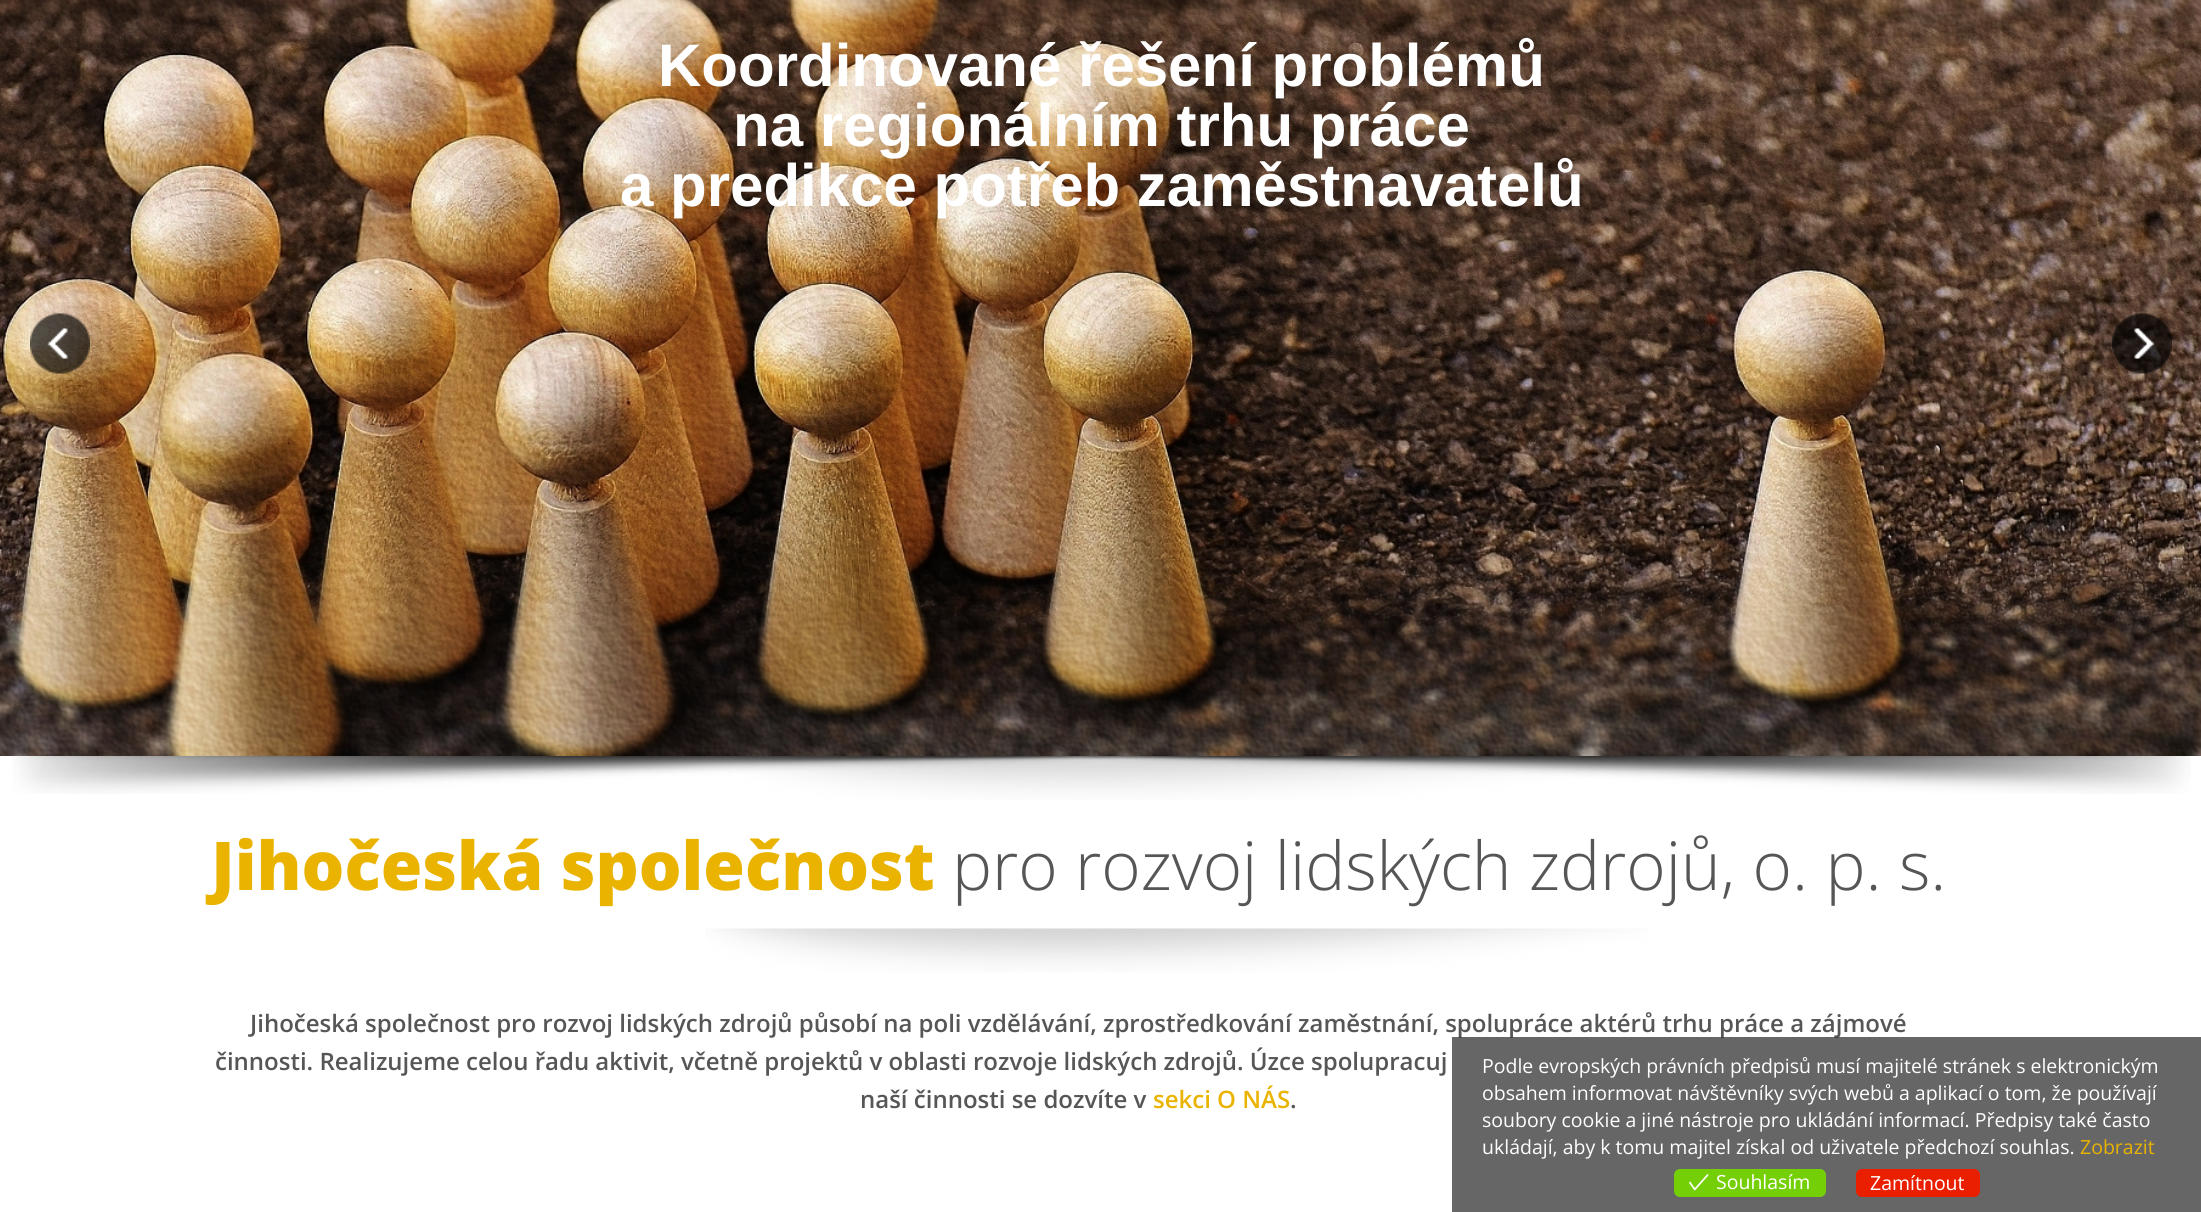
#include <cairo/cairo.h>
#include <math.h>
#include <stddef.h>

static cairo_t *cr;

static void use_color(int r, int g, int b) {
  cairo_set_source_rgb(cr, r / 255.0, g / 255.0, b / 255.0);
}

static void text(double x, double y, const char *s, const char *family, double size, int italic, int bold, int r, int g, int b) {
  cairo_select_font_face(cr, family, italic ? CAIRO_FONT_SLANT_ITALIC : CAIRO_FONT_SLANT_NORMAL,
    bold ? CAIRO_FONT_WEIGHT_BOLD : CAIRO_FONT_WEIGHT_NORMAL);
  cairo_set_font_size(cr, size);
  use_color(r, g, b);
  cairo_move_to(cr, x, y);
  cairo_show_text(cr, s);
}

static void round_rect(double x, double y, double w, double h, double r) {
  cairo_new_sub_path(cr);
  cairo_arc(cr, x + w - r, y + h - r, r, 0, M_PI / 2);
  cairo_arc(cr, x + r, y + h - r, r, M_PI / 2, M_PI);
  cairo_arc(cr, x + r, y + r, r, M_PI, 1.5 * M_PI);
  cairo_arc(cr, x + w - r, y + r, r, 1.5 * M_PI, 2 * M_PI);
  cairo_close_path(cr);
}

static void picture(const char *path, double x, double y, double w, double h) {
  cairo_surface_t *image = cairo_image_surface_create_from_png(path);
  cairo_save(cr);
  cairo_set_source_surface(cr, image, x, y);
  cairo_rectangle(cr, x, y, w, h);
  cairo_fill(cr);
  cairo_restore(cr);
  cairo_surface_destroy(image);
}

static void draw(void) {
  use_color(255, 255, 255);
  cairo_paint(cr);
  picture("img_01.png", 0, 0, 2201, 756);
  picture("img_02.png", 30, 313, 60, 61);
  picture("img_03.png", 2112, 313, 60, 61);
  picture("img_05.png", 727, 756, 943, 44);
  picture("img_04.png", 13, 756, 2178, 38);
  picture("img_06.png", 705, 928, 943, 45);
  text(658, 86, "Koordinované řešení problémů", "Liberation Sans", 60, 0, 1, 255, 255, 255);
  text(733, 146, "na regionálním trhu práce", "Liberation Sans", 60, 0, 1, 255, 255, 255);
  text(620, 206, "a predikce potřeb zaměstnavatelů", "Liberation Sans", 60, 0, 1, 255, 255, 255);
  text(211, 890, "Jihočeská společnost", "Open Sans ExtraBold", 67.25, 0, 0, 233, 179, 0);
  text(952, 890, "pro rozvoj lidských zdrojů, o. p. s.", "Open Sans Light", 67.25, 0, 0, 87, 86, 86);
  text(250, 1032, "Jihočeská společnost pro rozvoj lidských zdrojů působí na poli vzdělávání, zprostředkování zaměstnání, spolupráce aktérů trhu práce a zájmové", "Open Sans SemiBold", 24, 0, 0, 87, 86, 86);
  text(215, 1070, "činnosti. Realizujeme celou řadu aktivit, včetně projektů v oblasti rozvoje lidských zdrojů. Úzce spolupracuj", "Open Sans SemiBold", 24, 0, 0, 87, 86, 86);
  text(860, 1108, "naší činnosti se dozvíte v", "Open Sans SemiBold", 24, 0, 0, 87, 86, 86);
  text(1153, 1108, "sekci O NÁS", "Open Sans SemiBold", 24, 0, 0, 233, 179, 0);
  text(1290, 1108, ".", "Open Sans SemiBold", 24, 0, 0, 87, 86, 86);
  cairo_set_source_rgba(cr, 0.149, 0.149, 0.149, 0.7);
  cairo_rectangle(cr, 1452, 1037, 749, 175);
  cairo_fill(cr);
  text(1482, 1073, "Podle evropských právních předpisů musí majitelé stránek s elektronickým", "Open Sans", 19.5, 0, 0, 255, 255, 255);
  text(1482, 1100, "obsahem informovat návštěvníky svých webů a aplikací o tom, že používají", "Open Sans", 19.5, 0, 0, 255, 255, 255);
  text(1482, 1127, "soubory cookie a jiné nástroje pro ukládání informací. Předpisy také často", "Open Sans", 19.5, 0, 0, 255, 255, 255);
  text(1482, 1154, "ukládají, aby k tomu majitel získal od uživatele předchozí souhlas.", "Open Sans", 19.5, 0, 0, 255, 255, 255);
  text(2080, 1154, "Zobrazit", "Open Sans", 19.5, 0, 0, 233, 179, 0);
  use_color(117, 207, 6);
  round_rect(1674, 1169, 152, 28, 6);
  cairo_fill(cr);
  picture("img_07.png", 1689, 1174, 20, 17);
  text(1716, 1189, "Souhlasím", "Open Sans", 19.5, 0, 0, 255, 255, 255);
  use_color(234, 31, 0);
  round_rect(1856, 1169, 124, 28, 6);
  cairo_fill(cr);
  text(1870, 1190, "Zamítnout", "Open Sans", 19.5, 0, 0, 255, 255, 255);
}

int main(void) {
  cairo_surface_t *surface = cairo_image_surface_create(CAIRO_FORMAT_RGB24, 2201, 1212);
  cr = cairo_create(surface);
  cairo_font_options_t *options = cairo_font_options_create();
  cairo_font_options_set_hint_metrics(options, CAIRO_HINT_METRICS_OFF);
  cairo_font_options_set_hint_style(options, CAIRO_HINT_STYLE_NONE);
  cairo_set_font_options(cr, options);
  cairo_set_miter_limit(cr, 4);
  draw();
  cairo_surface_write_to_png(surface, "out.png");
  cairo_font_options_destroy(options);
  cairo_destroy(cr);
  cairo_surface_destroy(surface);
  return 0;
}
